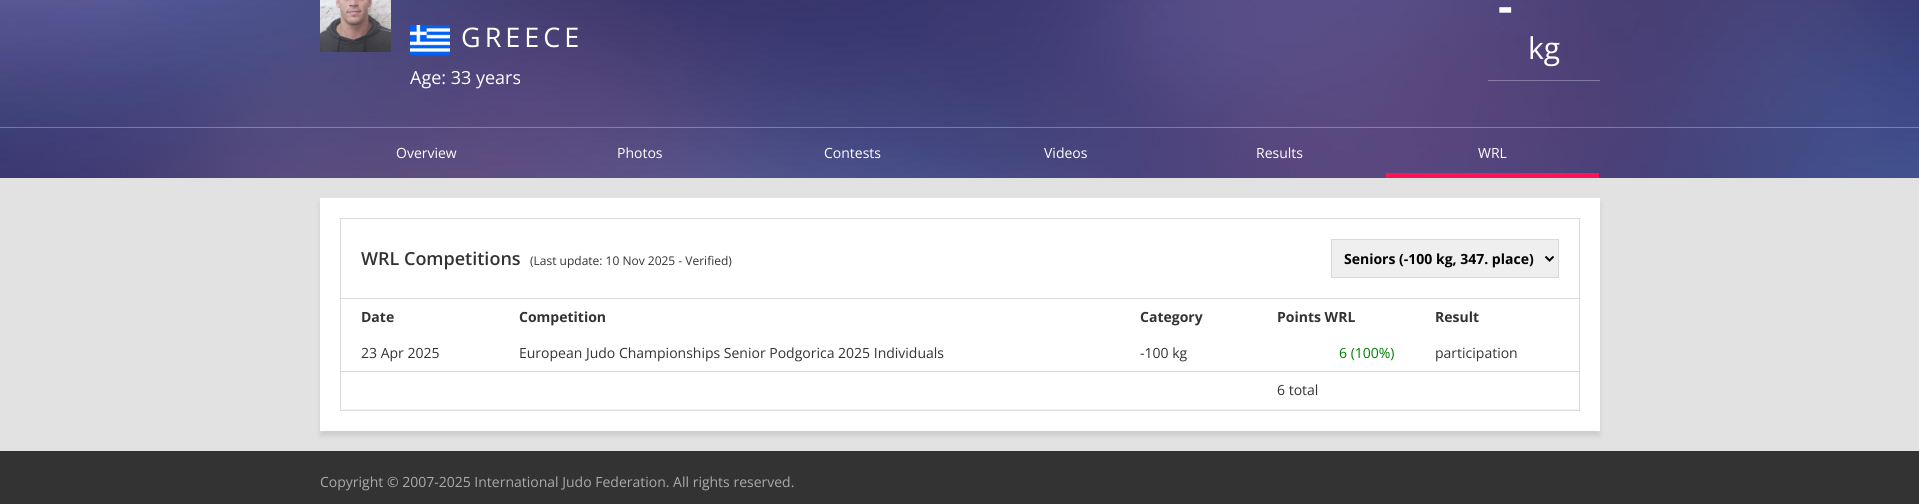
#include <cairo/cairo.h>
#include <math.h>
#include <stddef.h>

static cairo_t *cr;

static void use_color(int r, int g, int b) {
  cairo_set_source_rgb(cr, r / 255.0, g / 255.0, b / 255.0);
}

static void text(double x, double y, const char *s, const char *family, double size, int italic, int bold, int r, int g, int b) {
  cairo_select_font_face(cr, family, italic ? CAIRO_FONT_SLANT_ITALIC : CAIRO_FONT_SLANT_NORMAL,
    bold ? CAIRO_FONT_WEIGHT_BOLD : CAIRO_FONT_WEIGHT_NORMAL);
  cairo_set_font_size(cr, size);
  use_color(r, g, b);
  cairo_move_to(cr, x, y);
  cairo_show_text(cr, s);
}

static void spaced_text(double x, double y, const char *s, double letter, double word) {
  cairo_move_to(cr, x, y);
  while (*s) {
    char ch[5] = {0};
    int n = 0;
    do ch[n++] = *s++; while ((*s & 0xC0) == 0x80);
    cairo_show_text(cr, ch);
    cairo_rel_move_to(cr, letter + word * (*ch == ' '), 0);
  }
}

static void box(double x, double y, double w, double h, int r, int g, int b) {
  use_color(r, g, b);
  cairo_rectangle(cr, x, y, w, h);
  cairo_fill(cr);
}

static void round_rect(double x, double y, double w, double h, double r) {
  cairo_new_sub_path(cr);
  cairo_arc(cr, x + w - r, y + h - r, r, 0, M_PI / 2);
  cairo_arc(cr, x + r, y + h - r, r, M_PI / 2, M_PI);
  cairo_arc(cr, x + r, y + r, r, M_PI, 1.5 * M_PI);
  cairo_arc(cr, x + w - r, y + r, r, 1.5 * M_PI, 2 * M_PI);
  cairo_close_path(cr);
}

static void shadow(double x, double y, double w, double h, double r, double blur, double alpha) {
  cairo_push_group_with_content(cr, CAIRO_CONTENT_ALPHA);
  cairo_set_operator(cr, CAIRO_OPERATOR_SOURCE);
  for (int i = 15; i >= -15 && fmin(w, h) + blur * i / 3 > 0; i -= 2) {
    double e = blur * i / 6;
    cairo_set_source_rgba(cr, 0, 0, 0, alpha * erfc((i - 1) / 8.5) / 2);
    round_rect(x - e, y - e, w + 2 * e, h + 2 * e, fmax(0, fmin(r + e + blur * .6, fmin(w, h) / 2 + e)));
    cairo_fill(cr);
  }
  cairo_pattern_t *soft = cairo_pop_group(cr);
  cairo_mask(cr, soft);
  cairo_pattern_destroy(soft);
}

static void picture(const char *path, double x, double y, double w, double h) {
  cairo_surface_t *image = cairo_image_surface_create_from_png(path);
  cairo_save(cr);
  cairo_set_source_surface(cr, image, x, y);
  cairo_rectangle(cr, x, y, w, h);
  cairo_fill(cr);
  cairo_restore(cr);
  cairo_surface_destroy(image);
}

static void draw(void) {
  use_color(226, 226, 226);
  cairo_paint(cr);
  picture("img_01.png", 0, 0, 1919, 178);
  picture("img_02.png", 320, 0, 71, 52);
  picture("img_03.png", 410, 25, 40, 30);
  cairo_set_source_rgba(cr, 1, 1, 1, 0.3);
  cairo_rectangle(cr, 1488, 80, 112, 1);
  cairo_fill(cr);
  cairo_rectangle(cr, 0, 127, 1919, 1);
  cairo_fill(cr);
  box(1386, 173, 213, 5, 255, 21, 83);
  use_color(0, 0, 0);
  shadow(320, 203, 1280, 233, 0, 2.5, 0.1);
  box(320, 198, 1280, 233, 255, 255, 255);
  cairo_rectangle(cr, 340.5, 218.5, 1239, 192);
  use_color(218, 218, 218);
  cairo_set_line_width(cr, 1);
  cairo_stroke(cr);
  box(341, 298, 1238, 1, 218, 218, 218);
  use_color(239, 239, 239);
  cairo_rectangle(cr, 1331.5, 239.5, 227, 38);
  cairo_fill_preserve(cr);
  use_color(217, 217, 217);
  cairo_stroke(cr);
  cairo_new_path(cr);
  cairo_move_to(cr, 1545.5, 256.5);
  cairo_line_to(cr, 1549.5, 260.5);
  cairo_line_to(cr, 1553.5, 256.5);
  use_color(0, 0, 0);
  cairo_set_line_width(cr, 2);
  cairo_stroke(cr);
  box(340, 371, 1239, 1, 218, 218, 218);
  box(340, 409, 1239, 1, 242, 242, 242);
  box(0, 451, 1919, 53, 51, 51, 51);
  cairo_select_font_face(cr, "Open Sans", CAIRO_FONT_SLANT_NORMAL, CAIRO_FONT_WEIGHT_NORMAL);
  cairo_set_font_size(cr, 27);
  use_color(255, 255, 255);
  spaced_text(461, 47, "GREECE", 4, 0);
  text(410, 84, "Age: 33 years", "Open Sans", 18, 0, 0, 255, 255, 255);
  text(1498, 22, "-", "Open Sans", 45, 0, 1, 255, 255, 255);
  text(1528, 59, "kg", "Open Sans", 30, 0, 0, 255, 255, 255);
  text(396, 158, "Overview", "Open Sans", 14, 0, 0, 255, 255, 255);
  text(617, 158, "Photos", "Open Sans", 14, 0, 0, 255, 255, 255);
  text(824, 158, "Contests", "Open Sans", 14, 0, 0, 255, 255, 255);
  text(1044, 158, "Videos", "Open Sans", 14, 0, 0, 255, 255, 255);
  text(1256, 158, "Results", "Open Sans", 14, 0, 0, 255, 255, 255);
  text(1478, 158, "WRL", "Open Sans", 14, 0, 0, 255, 255, 255);
  text(361, 265, "WRL Competitions", "Open Sans SemiBold", 18, 0, 0, 51, 51, 51);
  text(530, 265, "(Last update: 10 Nov 2025 - Verified)", "Open Sans", 12, 0, 0, 51, 51, 51);
  text(1344, 264, "Seniors (-100 kg, 347. place)", "Open Sans", 14, 0, 1, 0, 0, 0);
  text(361, 322, "Date", "Open Sans", 14, 0, 1, 51, 51, 51);
  text(519, 322, "Competition", "Open Sans", 14, 0, 1, 51, 51, 51);
  text(1140, 322, "Category", "Open Sans", 14, 0, 1, 51, 51, 51);
  text(1277, 322, "Points WRL", "Open Sans", 14, 0, 1, 51, 51, 51);
  text(1435, 322, "Result", "Open Sans", 14, 0, 1, 51, 51, 51);
  text(361, 358, "23 Apr 2025", "Open Sans", 14, 0, 0, 51, 51, 51);
  text(519, 358, "European Judo Championships Senior Podgorica 2025 Individuals", "Open Sans", 14, 0, 0, 51, 51, 51);
  text(1140, 358, "-100 kg", "Open Sans", 14, 0, 0, 51, 51, 51);
  text(1339, 358, "6 (100%)", "Open Sans", 14, 0, 0, 0, 128, 0);
  text(1435, 358, "participation", "Open Sans", 14, 0, 0, 51, 51, 51);
  text(1277, 395, "6 total", "Open Sans", 14, 0, 0, 51, 51, 51);
  text(320, 487, "Copyright © 2007-2025 International Judo Federation. All rights reserved.", "Open Sans", 14, 0, 0, 170, 170, 170);
}

int main(void) {
  cairo_surface_t *surface = cairo_image_surface_create(CAIRO_FORMAT_RGB24, 1919, 504);
  cr = cairo_create(surface);
  cairo_font_options_t *options = cairo_font_options_create();
  cairo_font_options_set_hint_metrics(options, CAIRO_HINT_METRICS_OFF);
  cairo_font_options_set_hint_style(options, CAIRO_HINT_STYLE_NONE);
  cairo_set_font_options(cr, options);
  cairo_set_miter_limit(cr, 4);
  draw();
  cairo_surface_write_to_png(surface, "out.png");
  cairo_font_options_destroy(options);
  cairo_destroy(cr);
  cairo_surface_destroy(surface);
  return 0;
}
